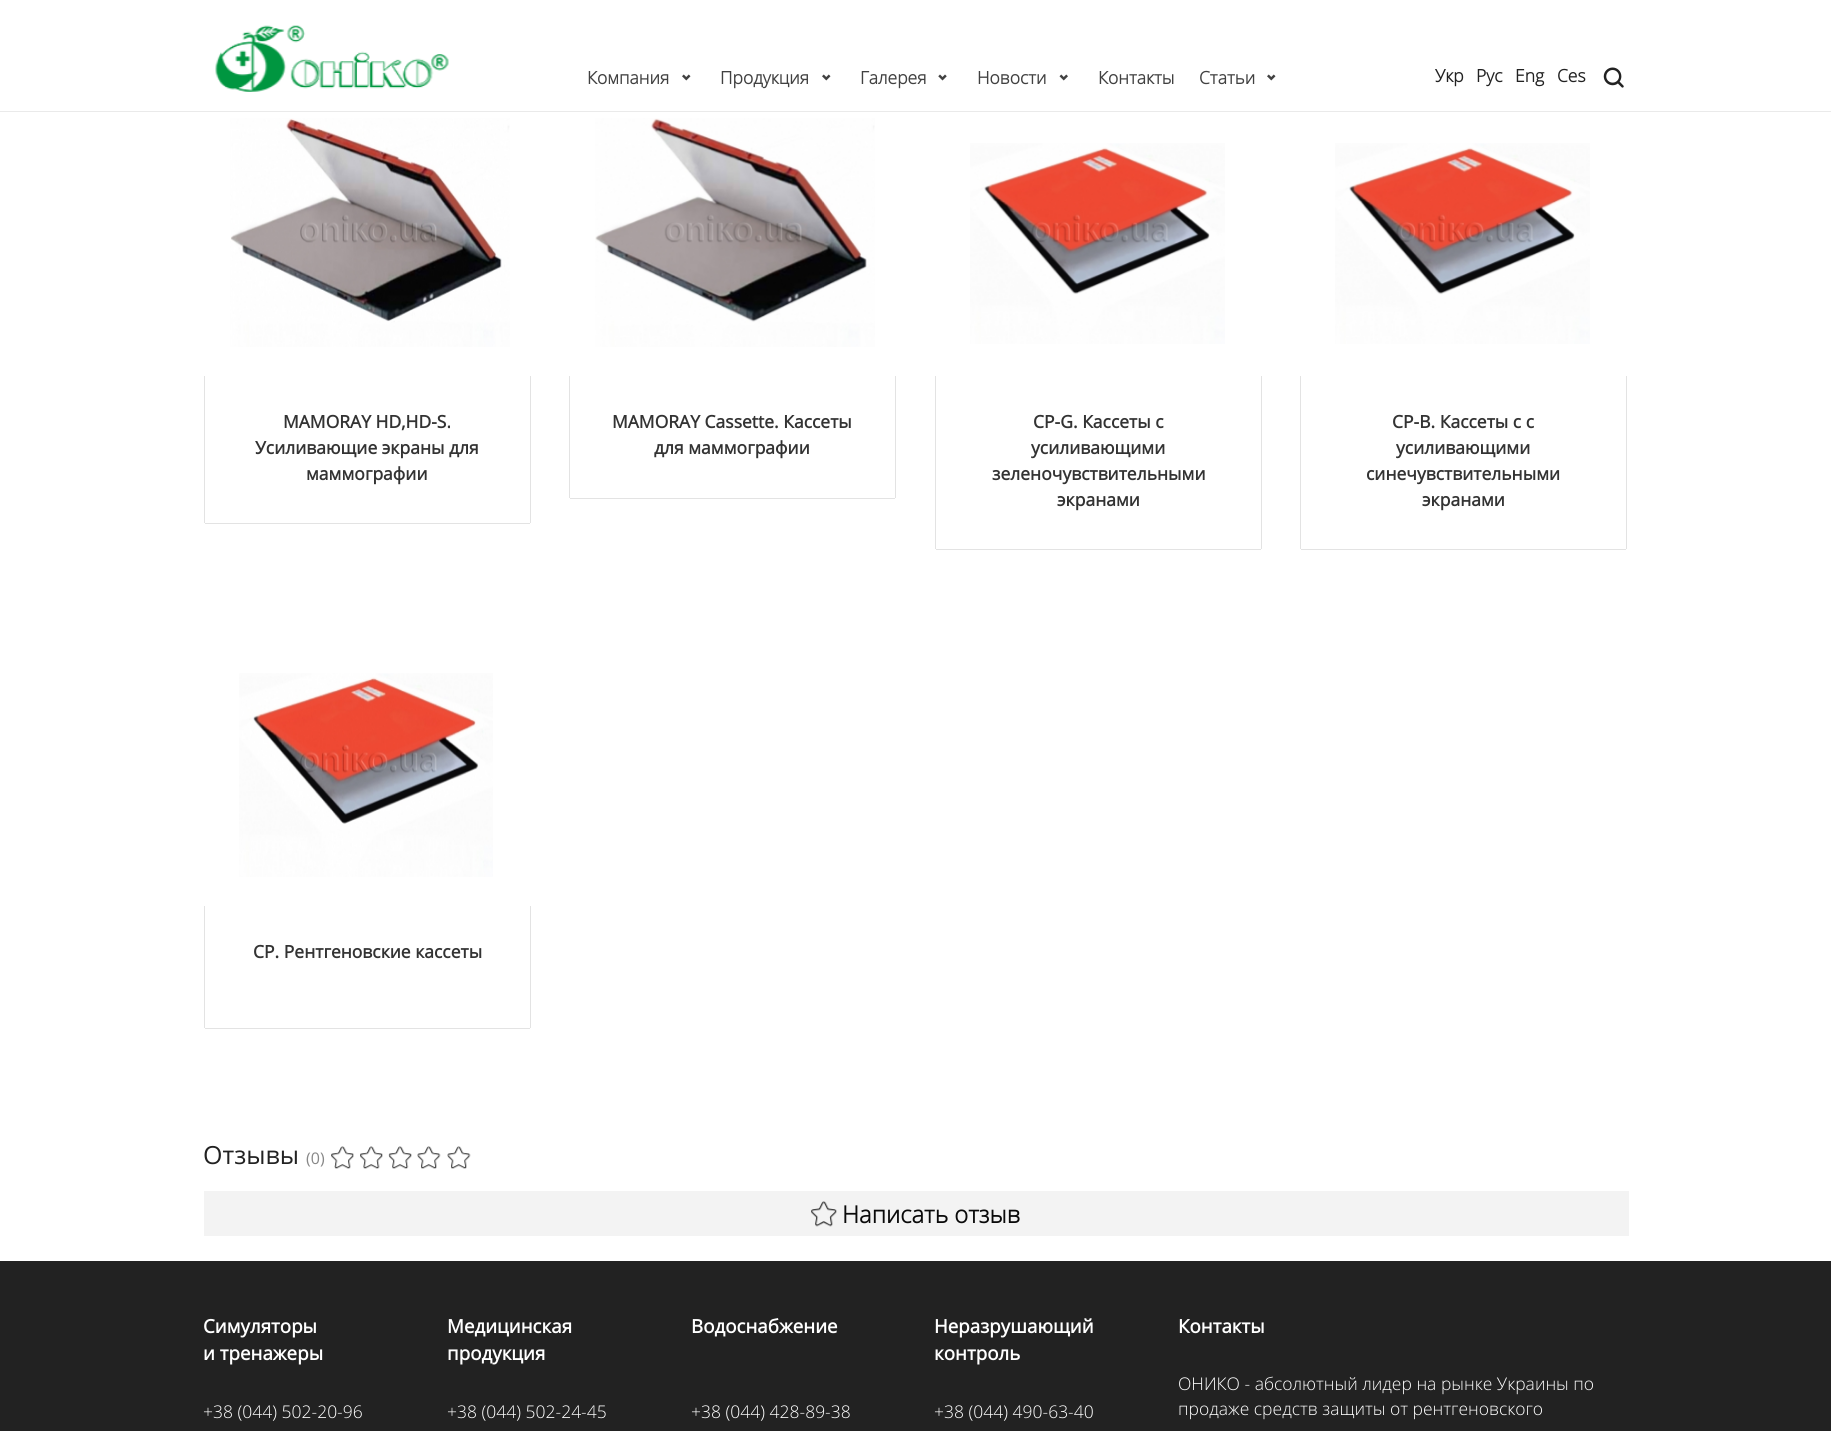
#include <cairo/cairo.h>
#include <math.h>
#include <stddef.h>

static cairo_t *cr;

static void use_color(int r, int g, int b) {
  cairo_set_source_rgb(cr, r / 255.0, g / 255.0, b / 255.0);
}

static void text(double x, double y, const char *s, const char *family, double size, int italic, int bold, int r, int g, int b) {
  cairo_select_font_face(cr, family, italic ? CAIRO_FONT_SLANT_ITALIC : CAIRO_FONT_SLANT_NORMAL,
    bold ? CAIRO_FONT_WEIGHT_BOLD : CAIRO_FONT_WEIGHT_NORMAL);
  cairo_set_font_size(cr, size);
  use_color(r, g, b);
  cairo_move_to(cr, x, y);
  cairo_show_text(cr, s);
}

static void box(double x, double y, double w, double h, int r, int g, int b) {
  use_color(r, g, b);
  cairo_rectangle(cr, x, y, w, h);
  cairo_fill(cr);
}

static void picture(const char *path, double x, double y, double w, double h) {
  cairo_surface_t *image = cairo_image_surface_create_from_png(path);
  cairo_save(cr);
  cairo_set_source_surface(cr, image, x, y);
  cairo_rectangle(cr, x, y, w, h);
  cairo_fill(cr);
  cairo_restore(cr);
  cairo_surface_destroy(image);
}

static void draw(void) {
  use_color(255, 255, 255);
  cairo_paint(cr);
  box(0, 111, 1831, 1, 234, 234, 234);
  picture("img_01.png", 215, 25, 234, 67);
  picture("img_02.png", 682, 74, 9, 7);
  picture("img_02.png", 822, 74, 9, 7);
  picture("img_03.png", 938, 74, 9, 7);
  picture("img_04.png", 1059, 74, 9, 7);
  picture("img_02.png", 1267, 74, 9, 7);
  picture("img_05.png", 1603, 67, 21, 21);
  picture("img_06.png", 230, 118, 280, 229);
  box(530, 376, 1, 147, 227, 227, 227);
  box(205, 523, 325, 1, 227, 227, 227);
  box(204, 376, 1, 147, 227, 227, 227);
  picture("img_07.png", 595, 118, 280, 229);
  box(895, 376, 1, 122, 227, 227, 227);
  box(570, 498, 325, 1, 227, 227, 227);
  box(569, 376, 1, 122, 227, 227, 227);
  picture("img_08.png", 970, 143, 255, 201);
  box(1261, 376, 1, 173, 227, 227, 227);
  box(936, 549, 325, 1, 227, 227, 227);
  box(935, 376, 1, 173, 227, 227, 227);
  picture("img_09.png", 1335, 143, 255, 201);
  box(1626, 376, 1, 173, 227, 227, 227);
  box(1301, 549, 325, 1, 227, 227, 227);
  box(1300, 376, 1, 173, 227, 227, 227);
  picture("img_10.png", 239, 673, 254, 204);
  box(530, 906, 1, 122, 227, 227, 227);
  box(205, 1028, 325, 1, 227, 227, 227);
  box(204, 906, 1, 122, 227, 227, 227);
  picture("img_11.png", 331, 1146, 23, 23);
  picture("img_12.png", 360, 1146, 23, 23);
  picture("img_13.png", 388, 1146, 24, 23);
  picture("img_14.png", 417, 1146, 24, 23);
  picture("img_15.png", 447, 1146, 24, 23);
  box(204, 1191, 1425, 45, 243, 243, 243);
  picture("img_16.png", 811, 1201, 26, 26);
  box(0, 1261, 1831, 170, 34, 34, 34);
  text(587, 84, "Компания", "Open Sans", 17.5, 0, 1, 65, 65, 65);
  text(720, 84, "Продукция", "Open Sans", 17.5, 0, 1, 65, 65, 65);
  text(860, 84, "Галерея", "Open Sans", 17.5, 0, 1, 65, 65, 65);
  text(977, 84, "Новости", "Open Sans", 17.5, 0, 1, 65, 65, 65);
  text(1098, 84, "Контакты", "Open Sans", 17.5, 0, 1, 65, 65, 65);
  text(1199, 84, "Статьи", "Open Sans", 17.5, 0, 1, 65, 65, 65);
  text(1435, 82, "Укр", "Open Sans", 17.5, 0, 1, 34, 34, 34);
  text(1476, 82, "Рус", "Open Sans", 17.5, 0, 1, 34, 34, 34);
  text(1515, 82, "Eng", "Open Sans", 17.5, 0, 1, 34, 34, 34);
  text(1557, 82, "Ces", "Open Sans", 17.5, 0, 1, 34, 34, 34);
  text(283, 428, "MAMORAY HD,HD-S.", "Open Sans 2", 17.5, 0, 1, 51, 51, 51);
  text(255, 454, "Усиливающие экраны для", "Open Sans 2", 17.5, 0, 1, 51, 51, 51);
  text(306, 480, "маммографии", "Open Sans 2", 17.5, 0, 1, 51, 51, 51);
  text(612, 428, "MAMORAY Cassette. Кассеты", "Open Sans 2", 17.5, 0, 1, 51, 51, 51);
  text(654, 454, "для маммографии", "Open Sans 2", 17.5, 0, 1, 51, 51, 51);
  text(1033, 428, "CP-G. Кассеты с", "Open Sans 2", 17.5, 0, 1, 51, 51, 51);
  text(1031, 454, "усиливающими", "Open Sans 2", 17.5, 0, 1, 51, 51, 51);
  text(992, 480, "зеленочувствительными", "Open Sans 2", 17.5, 0, 1, 51, 51, 51);
  text(1057, 506, "экранами", "Open Sans 2", 17.5, 0, 1, 51, 51, 51);
  text(1392, 428, "CP-B. Кассеты с с", "Open Sans 2", 17.5, 0, 1, 51, 51, 51);
  text(1396, 454, "усиливающими", "Open Sans 2", 17.5, 0, 1, 51, 51, 51);
  text(1366, 480, "синечувствительными", "Open Sans 2", 17.5, 0, 1, 51, 51, 51);
  text(1422, 506, "экранами", "Open Sans 2", 17.5, 0, 1, 51, 51, 51);
  text(253, 958, "CP. Рентгеновские кассеты", "Open Sans 2", 17.5, 0, 1, 51, 51, 51);
  text(203, 1164, "Отзывы", "Open Sans", 25, 0, 0, 34, 34, 34);
  text(306, 1164, "(0)", "Open Sans", 16, 0, 0, 136, 136, 136);
  text(842, 1223, "Написать отзыв", "Open Sans", 23.75, 0, 1, 10, 10, 10);
  text(203, 1333, "Симуляторы", "Open Sans 2", 18.75, 0, 1, 255, 255, 255);
  text(203, 1360, "и тренажеры", "Open Sans 2", 18.75, 0, 1, 255, 255, 255);
  text(203, 1418, "+38 (044) 502-20-96", "Open Sans Light", 17.5, 0, 0, 255, 255, 255);
  text(447, 1333, "Медицинская", "Open Sans 2", 18.75, 0, 1, 255, 255, 255);
  text(447, 1360, "продукция", "Open Sans 2", 18.75, 0, 1, 255, 255, 255);
  text(447, 1418, "+38 (044) 502-24-45", "Open Sans Light", 17.5, 0, 0, 255, 255, 255);
  text(691, 1333, "Водоснабжение", "Open Sans 2", 18.75, 0, 1, 255, 255, 255);
  text(691, 1418, "+38 (044) 428-89-38", "Open Sans Light", 17.5, 0, 0, 255, 255, 255);
  text(934, 1333, "Неразрушающий", "Open Sans 2", 18.75, 0, 1, 255, 255, 255);
  text(934, 1360, "контроль", "Open Sans 2", 18.75, 0, 1, 255, 255, 255);
  text(934, 1418, "+38 (044) 490-63-40", "Open Sans Light", 17.5, 0, 0, 255, 255, 255);
  text(1178, 1333, "Контакты", "Open Sans 2", 18.75, 0, 1, 255, 255, 255);
  text(1178, 1390, "ОНИКО - абсолютный лидер на рынке Украины по", "Open Sans Light", 17.5, 0, 0, 255, 255, 255);
  text(1178, 1415, "продаже средств защиты от рентгеновского", "Open Sans Light", 17.5, 0, 0, 255, 255, 255);
}

int main(void) {
  cairo_surface_t *surface = cairo_image_surface_create(CAIRO_FORMAT_RGB24, 1831, 1431);
  cr = cairo_create(surface);
  cairo_font_options_t *options = cairo_font_options_create();
  cairo_font_options_set_hint_metrics(options, CAIRO_HINT_METRICS_OFF);
  cairo_font_options_set_hint_style(options, CAIRO_HINT_STYLE_NONE);
  cairo_set_font_options(cr, options);
  cairo_set_miter_limit(cr, 4);
  draw();
  cairo_surface_write_to_png(surface, "out.png");
  cairo_font_options_destroy(options);
  cairo_destroy(cr);
  cairo_surface_destroy(surface);
  return 0;
}
